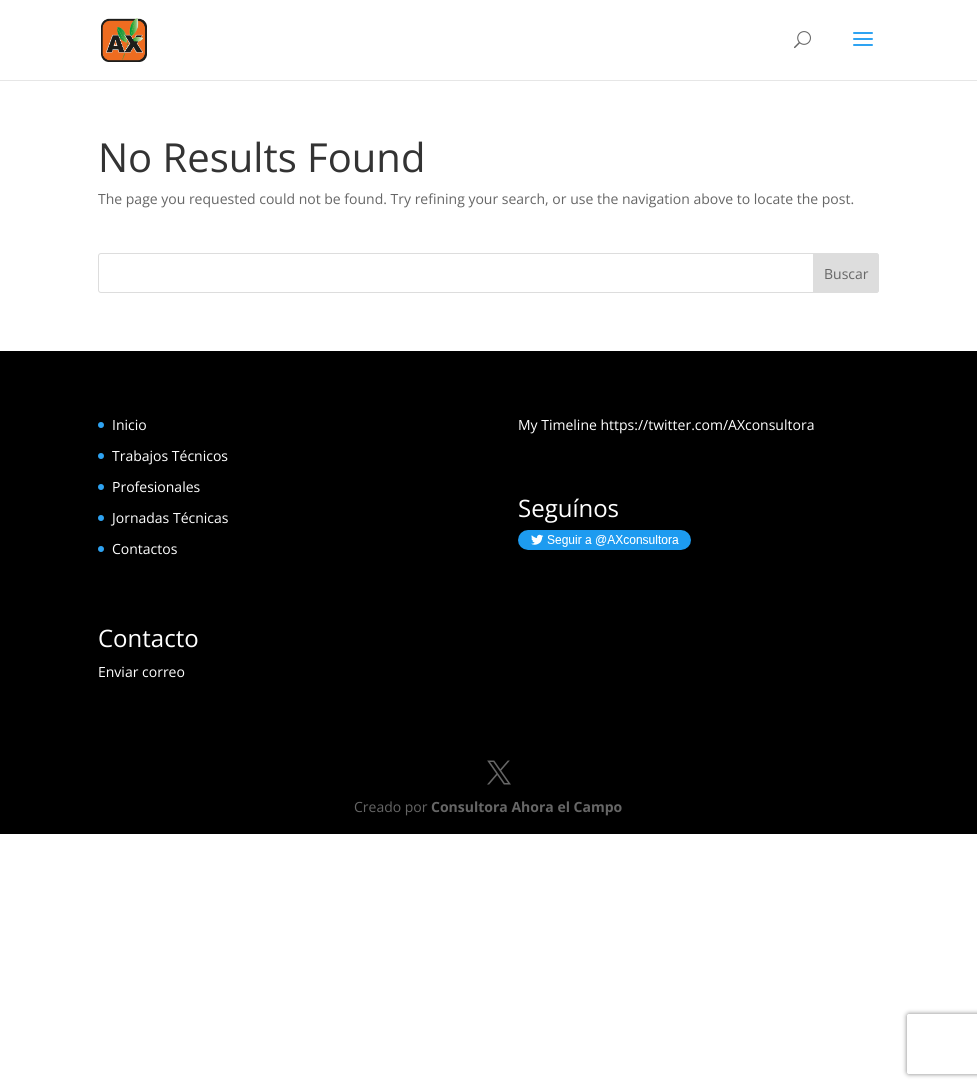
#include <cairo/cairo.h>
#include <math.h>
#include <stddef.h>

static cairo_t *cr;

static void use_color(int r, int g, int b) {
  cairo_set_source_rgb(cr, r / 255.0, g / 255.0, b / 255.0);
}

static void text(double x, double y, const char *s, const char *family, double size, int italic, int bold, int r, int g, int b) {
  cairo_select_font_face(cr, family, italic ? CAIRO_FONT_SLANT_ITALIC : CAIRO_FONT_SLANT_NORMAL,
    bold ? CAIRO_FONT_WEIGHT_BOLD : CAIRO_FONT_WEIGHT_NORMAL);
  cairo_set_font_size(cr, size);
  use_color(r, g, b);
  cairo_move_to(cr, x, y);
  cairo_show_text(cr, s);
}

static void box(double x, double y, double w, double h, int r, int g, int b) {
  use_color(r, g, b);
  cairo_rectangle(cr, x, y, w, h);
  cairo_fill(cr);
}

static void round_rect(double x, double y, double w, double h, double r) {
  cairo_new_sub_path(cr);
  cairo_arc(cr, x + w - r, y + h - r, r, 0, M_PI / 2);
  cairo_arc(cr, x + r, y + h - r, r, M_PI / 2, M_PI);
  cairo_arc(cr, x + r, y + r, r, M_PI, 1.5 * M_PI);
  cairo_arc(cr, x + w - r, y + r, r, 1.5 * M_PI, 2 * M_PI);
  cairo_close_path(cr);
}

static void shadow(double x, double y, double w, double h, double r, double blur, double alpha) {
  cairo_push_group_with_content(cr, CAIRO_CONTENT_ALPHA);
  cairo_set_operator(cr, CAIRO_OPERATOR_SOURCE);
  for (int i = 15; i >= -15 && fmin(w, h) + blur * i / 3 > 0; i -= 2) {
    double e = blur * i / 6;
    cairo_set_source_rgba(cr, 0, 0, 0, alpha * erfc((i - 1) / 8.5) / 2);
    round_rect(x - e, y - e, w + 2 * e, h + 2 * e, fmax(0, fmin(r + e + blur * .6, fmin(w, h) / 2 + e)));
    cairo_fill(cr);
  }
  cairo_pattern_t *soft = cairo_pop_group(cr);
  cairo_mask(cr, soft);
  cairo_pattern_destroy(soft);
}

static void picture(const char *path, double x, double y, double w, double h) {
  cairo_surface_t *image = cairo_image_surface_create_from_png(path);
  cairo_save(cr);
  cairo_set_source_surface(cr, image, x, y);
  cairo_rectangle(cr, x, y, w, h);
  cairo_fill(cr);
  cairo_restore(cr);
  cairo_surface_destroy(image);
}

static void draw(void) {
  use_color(255, 255, 255);
  cairo_paint(cr);
  box(0, 80, 977, 1, 230, 230, 230);
  picture("img_01.png", 101, 18, 46, 44);
  picture("img_02.png", 794, 31, 17, 18);
  picture("img_03.png", 853, 32, 20, 14);
  round_rect(98.5, 253.5, 780, 39, 2.5);
  use_color(221, 221, 221);
  cairo_set_line_width(cr, 1);
  cairo_stroke(cr);
  cairo_new_path(cr);
  cairo_move_to(cr, 813.5, 253.5);
  cairo_line_to(cr, 876, 253.5);
  cairo_curve_to(cr, 877.5, 253.5, 878.5, 254.5, 878.5, 256);
  cairo_line_to(cr, 878.5, 290);
  cairo_curve_to(cr, 878.5, 291.5, 877.5, 292.5, 876, 292.5);
  cairo_line_to(cr, 813.5, 292.5);
  cairo_close_path(cr);
  cairo_fill_preserve(cr);
  cairo_stroke(cr);
  box(0, 351, 977, 483, 0, 0, 0);
  use_color(46, 163, 242);
  cairo_arc(cr, 101, 425, 3, 0, 2 * M_PI);
  cairo_fill(cr);
  cairo_arc(cr, 101, 456, 3, 0, 2 * M_PI);
  cairo_fill(cr);
  cairo_arc(cr, 101, 487, 3, 0, 2 * M_PI);
  cairo_fill(cr);
  cairo_arc(cr, 101, 518, 3, 0, 2 * M_PI);
  cairo_fill(cr);
  cairo_arc(cr, 101, 549, 3, 0, 2 * M_PI);
  cairo_fill(cr);
  picture("img_04.png", 518, 530, 173, 20);
  picture("img_05.png", 487, 760, 24, 25);
  cairo_save(cr);
  cairo_set_fill_rule(cr, CAIRO_FILL_RULE_EVEN_ODD);
  cairo_new_path(cr);
  cairo_move_to(cr, 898, 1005);
  cairo_line_to(cr, 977, 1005);
  cairo_line_to(cr, 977, 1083);
  cairo_line_to(cr, 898, 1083);
  cairo_close_path(cr);
  cairo_move_to(cr, 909, 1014);
  cairo_line_to(cr, 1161, 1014);
  cairo_curve_to(cr, 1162, 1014, 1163, 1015, 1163, 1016);
  cairo_line_to(cr, 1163, 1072);
  cairo_curve_to(cr, 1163, 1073, 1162, 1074, 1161, 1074);
  cairo_line_to(cr, 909, 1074);
  cairo_curve_to(cr, 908, 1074, 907, 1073, 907, 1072);
  cairo_line_to(cr, 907, 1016);
  cairo_curve_to(cr, 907, 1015, 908, 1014, 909, 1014);
  cairo_close_path(cr);
  cairo_clip(cr);
  use_color(128, 128, 128);
  shadow(907, 1014, 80, 60, 2, 2.5, 1);
  cairo_restore(cr);
  text(98, 172, "No Results Found", "Open Sans", 40, 0, 0, 51, 51, 51);
  text(98, 204, "The page you requested could not be found. Try refining your search, or use the navigation above to locate the post.", "Open Sans", 14, 0, 0, 102, 102, 102);
  text(824, 279, "Buscar", "Open Sans", 14, 0, 0, 102, 102, 102);
  text(112, 430, "Inicio", "Open Sans", 14, 0, 0, 255, 255, 255);
  text(112, 461, "Trabajos Técnicos", "Open Sans", 14, 0, 0, 255, 255, 255);
  text(112, 492, "Profesionales", "Open Sans", 14, 0, 0, 255, 255, 255);
  text(112, 523, "Jornadas Técnicas", "Open Sans", 14, 0, 0, 255, 255, 255);
  text(112, 554, "Contactos", "Open Sans", 14, 0, 0, 255, 255, 255);
  text(518, 430, "My Timeline https://twitter.com/AXconsultora", "Open Sans", 14, 0, 0, 255, 255, 255);
  text(518, 517, "Seguínos", "Open Sans", 24, 0, 0, 255, 255, 255);
  text(98, 647, "Contacto", "Open Sans", 24, 0, 0, 255, 255, 255);
  text(98, 677, "Enviar correo", "Open Sans", 14, 0, 0, 255, 255, 255);
  text(354, 812, "Creado por", "Open Sans", 14, 0, 0, 102, 102, 102);
  text(431, 812, "Consultora Ahora el Campo", "Open Sans", 14, 0, 1, 102, 102, 102);
}

int main(void) {
  cairo_surface_t *surface = cairo_image_surface_create(CAIRO_FORMAT_RGB24, 977, 1088);
  cr = cairo_create(surface);
  cairo_font_options_t *options = cairo_font_options_create();
  cairo_font_options_set_hint_metrics(options, CAIRO_HINT_METRICS_OFF);
  cairo_font_options_set_hint_style(options, CAIRO_HINT_STYLE_NONE);
  cairo_set_font_options(cr, options);
  cairo_set_miter_limit(cr, 4);
  draw();
  cairo_surface_write_to_png(surface, "out.png");
  cairo_font_options_destroy(options);
  cairo_destroy(cr);
  cairo_surface_destroy(surface);
  return 0;
}
